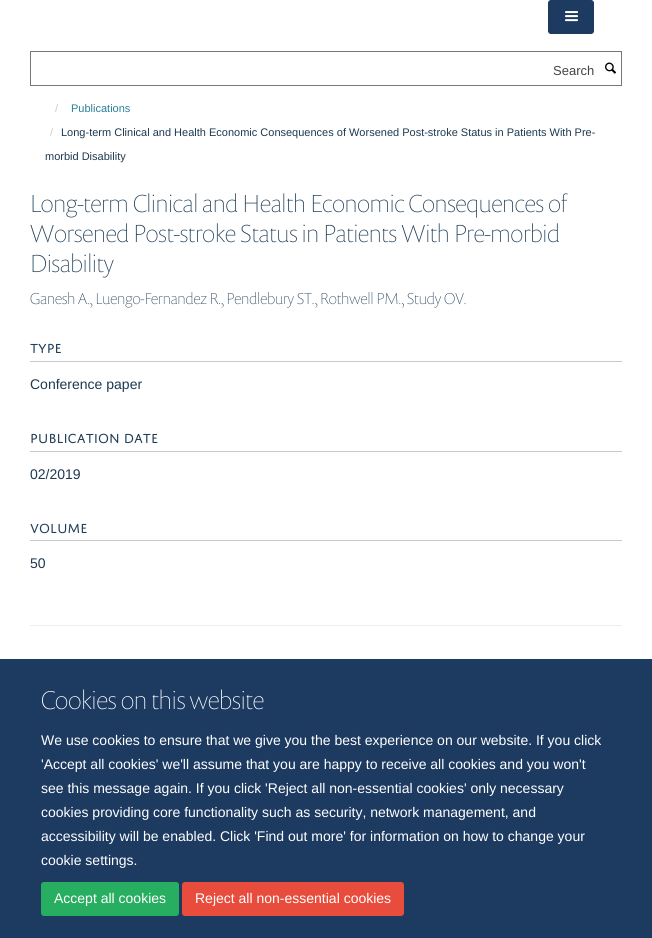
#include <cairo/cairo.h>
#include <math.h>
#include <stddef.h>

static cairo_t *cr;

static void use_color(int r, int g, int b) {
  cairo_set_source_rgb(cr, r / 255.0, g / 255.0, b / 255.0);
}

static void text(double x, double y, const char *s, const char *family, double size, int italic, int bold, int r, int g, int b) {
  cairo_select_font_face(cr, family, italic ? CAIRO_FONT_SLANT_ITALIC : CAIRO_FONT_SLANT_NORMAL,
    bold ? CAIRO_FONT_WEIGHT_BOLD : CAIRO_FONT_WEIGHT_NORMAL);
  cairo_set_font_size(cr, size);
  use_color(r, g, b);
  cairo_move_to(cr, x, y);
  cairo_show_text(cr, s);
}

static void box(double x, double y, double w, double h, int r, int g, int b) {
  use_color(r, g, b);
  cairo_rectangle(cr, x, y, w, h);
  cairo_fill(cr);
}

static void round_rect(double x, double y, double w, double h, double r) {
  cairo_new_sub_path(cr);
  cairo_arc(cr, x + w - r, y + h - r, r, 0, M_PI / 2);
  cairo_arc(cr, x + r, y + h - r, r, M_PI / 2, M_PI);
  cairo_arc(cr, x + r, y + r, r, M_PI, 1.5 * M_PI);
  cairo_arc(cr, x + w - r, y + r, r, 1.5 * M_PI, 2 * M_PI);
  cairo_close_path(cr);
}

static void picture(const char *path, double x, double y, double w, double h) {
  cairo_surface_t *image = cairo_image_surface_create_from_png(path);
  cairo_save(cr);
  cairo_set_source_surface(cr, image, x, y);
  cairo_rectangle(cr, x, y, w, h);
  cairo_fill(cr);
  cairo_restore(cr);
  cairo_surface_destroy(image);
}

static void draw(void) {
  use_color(255, 255, 255);
  cairo_paint(cr);
  use_color(29, 58, 97);
  round_rect(548.5, 0.5, 45, 33, 2.5);
  cairo_fill_preserve(cr);
  cairo_set_line_width(cr, 1);
  cairo_stroke(cr);
  picture("img_01.png", 565, 11, 13, 11);
  cairo_rectangle(cr, 30.5, 51.5, 591, 34);
  use_color(119, 119, 119);
  cairo_stroke(cr);
  picture("img_02.png", 605, 62, 11, 12);
  box(30, 361, 592, 1, 198, 202, 207);
  box(30, 451, 592, 1, 198, 202, 207);
  box(30, 540, 592, 1, 198, 202, 207);
  box(30, 625, 592, 1, 238, 238, 238);
  box(0, 659, 652, 279, 29, 58, 97);
  use_color(39, 174, 96);
  round_rect(41.5, 882.5, 137, 33, 2.5);
  cairo_fill_preserve(cr);
  cairo_stroke(cr);
  use_color(231, 76, 60);
  round_rect(182.5, 882.5, 221, 33, 2.5);
  cairo_fill_preserve(cr);
  cairo_stroke(cr);
  text(553, 75, "Search", "Liberation Sans", 13, 0, 0, 68, 68, 68);
  text(55, 112, "/", "Liberation Sans", 11, 0, 0, 204, 204, 204);
  text(71, 112, "Publications", "Liberation Sans", 11, 0, 0, 41, 128, 150);
  text(50, 136, "/", "Liberation Sans", 11, 0, 0, 204, 204, 204);
  text(61, 136, "Long-term Clinical and Health Economic Consequences of Worsened Post-stroke Status in Patients With Pre-", "Liberation Sans", 11, 0, 0, 29, 56, 80);
  text(45, 160, "morbid Disability", "Liberation Sans", 11, 0, 0, 29, 56, 80);
  text(30, 212, "Long-term Clinical and Health Economic Consequences of", "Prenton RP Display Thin", 25, 0, 0, 32, 62, 88);
  text(30, 242, "Worsened Post-stroke Status in Patients With Pre-morbid", "Prenton RP Display Thin", 25, 0, 0, 32, 62, 88);
  text(30, 272, "Disability", "Prenton RP Display Thin", 25, 0, 0, 32, 62, 88);
  text(30, 304, "Ganesh A., Luengo-Fernandez R., Pendlebury ST., Rothwell PM., Study OV.", "Prenton RP Display Thin", 16, 0, 0, 32, 62, 88);
  text(30, 353, "TYPE", "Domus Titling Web", 14, 0, 0, 32, 62, 88);
  text(30, 389, "Conference paper", "Liberation Sans", 14, 0, 0, 29, 56, 80);
  text(30, 443, "PUBLICATION DATE", "Domus Titling Web", 14, 0, 0, 32, 62, 88);
  text(30, 479, "02/2019", "Liberation Sans", 14, 0, 0, 29, 56, 80);
  text(30, 533, "VOLUME", "Domus Titling Web", 14, 0, 0, 32, 62, 88);
  text(30, 568, "50", "Liberation Sans", 14, 0, 0, 29, 56, 80);
  text(41, 709, "Cookies on this website", "Prenton RP Display Thin", 26, 0, 0, 255, 255, 255);
  text(41, 745, "We use cookies to ensure that we give you the best experience on our website. If you click", "Liberation Sans", 14, 0, 0, 255, 255, 255);
  text(41, 769, "'Accept all cookies' we'll assume that you are happy to receive all cookies and you won't", "Liberation Sans", 14, 0, 0, 255, 255, 255);
  text(41, 793, "see this message again. If you click 'Reject all non-essential cookies' only necessary", "Liberation Sans", 14, 0, 0, 255, 255, 255);
  text(41, 817, "cookies providing core functionality such as security, network management, and", "Liberation Sans", 14, 0, 0, 255, 255, 255);
  text(41, 841, "accessibility will be enabled. Click 'Find out more' for information on how to change your", "Liberation Sans", 14, 0, 0, 255, 255, 255);
  text(41, 865, "cookie settings.", "Liberation Sans", 14, 0, 0, 255, 255, 255);
  text(54, 903, "Accept all cookies", "Liberation Sans", 14, 0, 0, 255, 255, 255);
  text(195, 903, "Reject all non-essential cookies", "Liberation Sans", 14, 0, 0, 255, 255, 255);
}

int main(void) {
  cairo_surface_t *surface = cairo_image_surface_create(CAIRO_FORMAT_RGB24, 652, 938);
  cr = cairo_create(surface);
  cairo_font_options_t *options = cairo_font_options_create();
  cairo_font_options_set_hint_metrics(options, CAIRO_HINT_METRICS_OFF);
  cairo_font_options_set_hint_style(options, CAIRO_HINT_STYLE_NONE);
  cairo_set_font_options(cr, options);
  cairo_set_miter_limit(cr, 4);
  draw();
  cairo_surface_write_to_png(surface, "out.png");
  cairo_font_options_destroy(options);
  cairo_destroy(cr);
  cairo_surface_destroy(surface);
  return 0;
}
